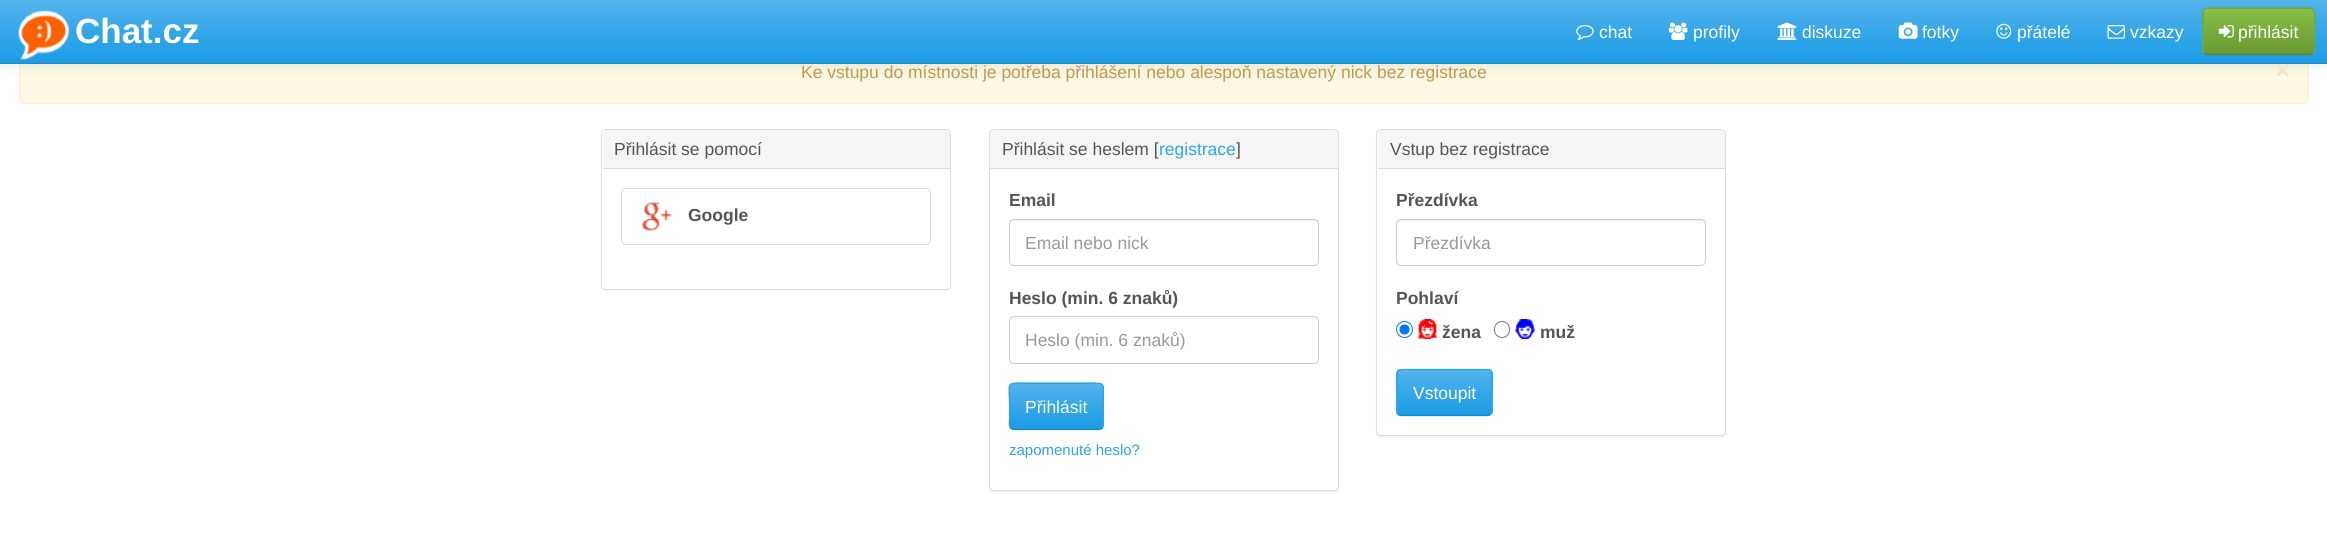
#include <cairo/cairo.h>
#include <math.h>
#include <stddef.h>

static cairo_t *cr;

static void use_color(int r, int g, int b) {
  cairo_set_source_rgb(cr, r / 255.0, g / 255.0, b / 255.0);
}

static void text(double x, double y, const char *s, const char *family, double size, int italic, int bold, int r, int g, int b) {
  cairo_select_font_face(cr, family, italic ? CAIRO_FONT_SLANT_ITALIC : CAIRO_FONT_SLANT_NORMAL,
    bold ? CAIRO_FONT_WEIGHT_BOLD : CAIRO_FONT_WEIGHT_NORMAL);
  cairo_set_font_size(cr, size);
  use_color(r, g, b);
  cairo_move_to(cr, x, y);
  cairo_show_text(cr, s);
}

static void box(double x, double y, double w, double h, int r, int g, int b) {
  use_color(r, g, b);
  cairo_rectangle(cr, x, y, w, h);
  cairo_fill(cr);
}

static void round_rect(double x, double y, double w, double h, double r) {
  cairo_new_sub_path(cr);
  cairo_arc(cr, x + w - r, y + h - r, r, 0, M_PI / 2);
  cairo_arc(cr, x + r, y + h - r, r, M_PI / 2, M_PI);
  cairo_arc(cr, x + r, y + r, r, M_PI, 1.5 * M_PI);
  cairo_arc(cr, x + w - r, y + r, r, 1.5 * M_PI, 2 * M_PI);
  cairo_close_path(cr);
}

static void shadow(double x, double y, double w, double h, double r, double blur, double alpha) {
  cairo_push_group_with_content(cr, CAIRO_CONTENT_ALPHA);
  cairo_set_operator(cr, CAIRO_OPERATOR_SOURCE);
  for (int i = 15; i >= -15 && fmin(w, h) + blur * i / 3 > 0; i -= 2) {
    double e = blur * i / 6;
    cairo_set_source_rgba(cr, 0, 0, 0, alpha * erfc((i - 1) / 8.5) / 2);
    round_rect(x - e, y - e, w + 2 * e, h + 2 * e, fmax(0, fmin(r + e + blur * .6, fmin(w, h) / 2 + e)));
    cairo_fill(cr);
  }
  cairo_pattern_t *soft = cairo_pop_group(cr);
  cairo_mask(cr, soft);
  cairo_pattern_destroy(soft);
}

static void picture(const char *path, double x, double y, double w, double h) {
  cairo_surface_t *image = cairo_image_surface_create_from_png(path);
  cairo_save(cr);
  cairo_set_source_surface(cr, image, x, y);
  cairo_rectangle(cr, x, y, w, h);
  cairo_fill(cr);
  cairo_restore(cr);
  cairo_surface_destroy(image);
}

static void draw(void) {
  cairo_pattern_t *gradient;
  use_color(255, 255, 255);
  cairo_paint(cr);
  use_color(252, 248, 227);
  round_rect(19.5, 39.5, 2289, 64, 4.5);
  cairo_fill_preserve(cr);
  use_color(251, 238, 213);
  cairo_set_line_width(cr, 1);
  cairo_stroke(cr);
  use_color(0, 0, 0);
  shadow(0, 1, 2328, 64, 0, 6, 0.1);
  gradient = cairo_pattern_create_linear(1164, 0, 1164, 63);
  cairo_pattern_add_color_stop_rgba(gradient, 0, 0.329, 0.706, 0.922, 1);
  cairo_pattern_add_color_stop_rgba(gradient, 0.6, 0.184, 0.643, 0.906, 1);
  cairo_pattern_add_color_stop_rgba(gradient, 1, 0.114, 0.612, 0.898, 1);
  cairo_set_source(cr, gradient);
  cairo_pattern_destroy(gradient);
  cairo_rectangle(cr, 0, 0, 2327, 63);
  cairo_fill(cr);
  picture("img_01.png", 18, 10, 51, 50);
  picture("img_02.png", 1576, 25, 18, 15);
  picture("img_03.png", 1668, 22, 20, 18);
  picture("img_04.png", 1777, 22, 20, 18);
  picture("img_05.png", 1898, 22, 20, 17);
  picture("img_06.png", 1996, 23, 16, 16);
  picture("img_07.png", 2107, 25, 18, 14);
  use_color(115, 168, 57);
  round_rect(2203, 8, 112, 47, 5);
  cairo_fill(cr);
  cairo_save(cr);
  round_rect(2203, 8, 112, 47, 5);
  cairo_clip(cr);
  gradient = cairo_pattern_create_linear(2259, 9, 2259, 54);
  cairo_pattern_add_color_stop_rgba(gradient, 0, 0.533, 0.757, 0.286, 1);
  cairo_pattern_add_color_stop_rgba(gradient, 0.6, 0.451, 0.659, 0.224, 1);
  cairo_pattern_add_color_stop_rgba(gradient, 1, 0.412, 0.6, 0.204, 1);
  cairo_set_source(cr, gradient);
  cairo_pattern_destroy(gradient);
  cairo_rectangle(cr, 2204, 9, 110, 45);
  cairo_fill(cr);
  cairo_restore(cr);
  cairo_new_path(cr);
  cairo_move_to(cr, 2313, 53);
  cairo_line_to(cr, 2310.5, 54.5);
  cairo_line_to(cr, 2207, 54.5);
  cairo_line_to(cr, 2204.5, 53);
  use_color(89, 130, 44);
  cairo_set_line_width(cr, 1.2);
  cairo_stroke(cr);
  cairo_new_path(cr);
  cairo_move_to(cr, 2204.5, 53);
  cairo_curve_to(cr, 2202, 51, 2203, 46, 2203, 44);
  cairo_line_to(cr, 2203, 31);
  cairo_curve_to(cr, 2203, 5, 2198.5, 8, 2224.5, 8);
  cairo_line_to(cr, 2293, 8);
  cairo_curve_to(cr, 2319, 8, 2314.5, 5, 2314.5, 31);
  cairo_line_to(cr, 2314.5, 44);
  cairo_curve_to(cr, 2314.5, 46, 2315.5, 51, 2313, 53);
  use_color(115, 168, 57);
  cairo_stroke(cr);
  picture("img_08.png", 2218, 25, 16, 13);
  use_color(0, 0, 0);
  shadow(601, 130, 350, 161, 5, 0.5, 0.05);
  use_color(255, 255, 255);
  round_rect(601.5, 129.5, 349, 160, 4.5);
  cairo_fill_preserve(cr);
  use_color(221, 221, 221);
  cairo_set_line_width(cr, 1);
  cairo_stroke(cr);
  use_color(245, 245, 245);
  cairo_new_path(cr);
  cairo_move_to(cr, 607, 130);
  cairo_line_to(cr, 946, 130);
  cairo_curve_to(cr, 948, 130, 950, 132, 950, 134);
  cairo_line_to(cr, 950, 169);
  cairo_line_to(cr, 603, 169);
  cairo_line_to(cr, 603, 134);
  cairo_curve_to(cr, 603, 132, 605, 130, 607, 130);
  cairo_close_path(cr);
  cairo_fill(cr);
  box(603, 168, 347, 1, 221, 221, 221);
  round_rect(621.5, 188.5, 309, 56, 4.5);
  cairo_stroke(cr);
  picture("img_09.png", 641, 201, 31, 31);
  use_color(0, 0, 0);
  shadow(989, 130, 350, 363, 5, 0.5, 0.05);
  use_color(255, 255, 255);
  round_rect(989.5, 129.5, 349, 361, 4.5);
  cairo_fill_preserve(cr);
  use_color(221, 221, 221);
  cairo_stroke(cr);
  use_color(245, 245, 245);
  cairo_new_path(cr);
  cairo_move_to(cr, 994, 130);
  cairo_line_to(cr, 1334, 130);
  cairo_curve_to(cr, 1336, 130, 1338, 132, 1338, 134);
  cairo_line_to(cr, 1338, 169);
  cairo_line_to(cr, 990, 169);
  cairo_line_to(cr, 990, 134);
  cairo_curve_to(cr, 990, 132, 992, 130, 994, 130);
  cairo_close_path(cr);
  cairo_fill(cr);
  box(990, 168, 348, 1, 221, 221, 221);
  use_color(236, 236, 236);
  cairo_new_path(cr);
  cairo_move_to(cr, 1014, 221);
  cairo_line_to(cr, 1314, 221);
  cairo_curve_to(cr, 1316, 221, 1318, 223, 1318, 225);
  cairo_curve_to(cr, 1318, 222, 1317, 220, 1314, 220);
  cairo_line_to(cr, 1014, 220);
  cairo_line_to(cr, 1011, 221);
  cairo_curve_to(cr, 1010, 222, 1010, 224, 1010, 225);
  cairo_curve_to(cr, 1010, 223, 1012, 221, 1014, 221);
  cairo_close_path(cr);
  cairo_fill(cr);
  round_rect(1009.5, 219.5, 309, 46, 4.5);
  use_color(204, 204, 204);
  cairo_stroke(cr);
  use_color(236, 236, 236);
  cairo_new_path(cr);
  cairo_move_to(cr, 1014, 319);
  cairo_line_to(cr, 1314, 319);
  cairo_curve_to(cr, 1316, 319, 1318, 320, 1318, 322);
  cairo_curve_to(cr, 1318, 320, 1316, 318, 1314, 318);
  cairo_line_to(cr, 1014, 318);
  cairo_curve_to(cr, 1012, 318, 1010, 320, 1010, 322);
  cairo_curve_to(cr, 1010, 320, 1012, 319, 1014, 319);
  cairo_close_path(cr);
  cairo_fill(cr);
  round_rect(1009.5, 316.5, 309, 47, 4.5);
  use_color(204, 204, 204);
  cairo_stroke(cr);
  use_color(47, 164, 231);
  round_rect(1009, 383, 95, 47, 5);
  cairo_fill(cr);
  cairo_save(cr);
  round_rect(1009, 383, 95, 47, 5);
  cairo_clip(cr);
  gradient = cairo_pattern_create_linear(1056, 384, 1056, 429);
  cairo_pattern_add_color_stop_rgba(gradient, 0, 0.329, 0.706, 0.922, 1);
  cairo_pattern_add_color_stop_rgba(gradient, 0.6, 0.184, 0.643, 0.906, 1);
  cairo_pattern_add_color_stop_rgba(gradient, 1, 0.114, 0.612, 0.898, 1);
  cairo_set_source(cr, gradient);
  cairo_pattern_destroy(gradient);
  cairo_rectangle(cr, 1010, 384, 93, 45);
  cairo_fill(cr);
  cairo_restore(cr);
  cairo_new_path(cr);
  cairo_move_to(cr, 1102, 428);
  cairo_line_to(cr, 1099, 429.5);
  cairo_line_to(cr, 1013.5, 429.5);
  cairo_line_to(cr, 1010.5, 428);
  use_color(23, 138, 204);
  cairo_set_line_width(cr, 1.2);
  cairo_stroke(cr);
  cairo_new_path(cr);
  cairo_move_to(cr, 1010.5, 428);
  cairo_curve_to(cr, 1008.5, 426, 1009.5, 421, 1009.5, 419);
  cairo_line_to(cr, 1009.5, 406);
  cairo_curve_to(cr, 1009.5, 381, 1004.5, 383, 1028, 383);
  cairo_line_to(cr, 1084.5, 383);
  cairo_curve_to(cr, 1108, 383, 1103, 381, 1103, 406);
  cairo_line_to(cr, 1103, 419);
  cairo_curve_to(cr, 1103, 421, 1104, 426, 1102, 428);
  use_color(47, 164, 231);
  cairo_stroke(cr);
  use_color(0, 0, 0);
  shadow(1376, 130, 350, 308, 5, 0.5, 0.05);
  use_color(255, 255, 255);
  round_rect(1376.5, 129.5, 349, 306, 4.5);
  cairo_fill_preserve(cr);
  use_color(221, 221, 221);
  cairo_set_line_width(cr, 1);
  cairo_stroke(cr);
  use_color(245, 245, 245);
  cairo_new_path(cr);
  cairo_move_to(cr, 1382, 130);
  cairo_line_to(cr, 1721, 130);
  cairo_curve_to(cr, 1723, 130, 1725, 132, 1725, 134);
  cairo_line_to(cr, 1725, 169);
  cairo_line_to(cr, 1378, 169);
  cairo_line_to(cr, 1378, 134);
  cairo_curve_to(cr, 1378, 132, 1380, 130, 1382, 130);
  cairo_close_path(cr);
  cairo_fill(cr);
  box(1378, 168, 347, 1, 221, 221, 221);
  use_color(236, 236, 236);
  cairo_new_path(cr);
  cairo_move_to(cr, 1401, 221);
  cairo_line_to(cr, 1701, 221);
  cairo_curve_to(cr, 1703, 221, 1705, 223, 1705, 225);
  cairo_curve_to(cr, 1705, 222, 1704, 220, 1701, 220);
  cairo_line_to(cr, 1402, 220);
  cairo_line_to(cr, 1399, 221);
  cairo_curve_to(cr, 1398, 222, 1398, 224, 1398, 225);
  cairo_curve_to(cr, 1398, 223, 1399, 221, 1401, 221);
  cairo_close_path(cr);
  cairo_fill(cr);
  round_rect(1396.5, 219.5, 309, 46, 4.5);
  use_color(204, 204, 204);
  cairo_stroke(cr);
  cairo_arc(cr, 1404.5, 329.5, 8, 0, 2 * M_PI);
  use_color(0, 117, 255);
  cairo_stroke(cr);
  cairo_arc(cr, 1404.5, 329.5, 5, 0, 2 * M_PI);
  cairo_fill(cr);
  picture("img_10.png", 1417, 319, 21, 20);
  round_rect(1494.5, 321.5, 15, 16, 7.5);
  use_color(118, 118, 118);
  cairo_stroke(cr);
  picture("img_11.png", 1515, 319, 20, 20);
  use_color(47, 164, 231);
  round_rect(1396, 369, 97, 47, 5);
  cairo_fill(cr);
  gradient = cairo_pattern_create_linear(1444, 370, 1444, 415);
  cairo_pattern_add_color_stop_rgba(gradient, 0, 0.329, 0.706, 0.922, 1);
  cairo_pattern_add_color_stop_rgba(gradient, 0.6, 0.184, 0.643, 0.906, 1);
  cairo_pattern_add_color_stop_rgba(gradient, 1, 0.114, 0.612, 0.898, 1);
  cairo_set_source(cr, gradient);
  cairo_pattern_destroy(gradient);
  cairo_rectangle(cr, 1398, 370, 93, 45);
  cairo_fill(cr);
  cairo_new_path(cr);
  cairo_move_to(cr, 1490.5, 414.5);
  cairo_line_to(cr, 1488, 415.5);
  cairo_line_to(cr, 1401, 415.5);
  cairo_line_to(cr, 1398, 414.5);
  use_color(23, 138, 204);
  cairo_set_line_width(cr, 1.2);
  cairo_stroke(cr);
  cairo_new_path(cr);
  cairo_move_to(cr, 1398, 414.5);
  cairo_curve_to(cr, 1396, 412, 1397, 407.5, 1397, 405);
  cairo_line_to(cr, 1397, 392.5);
  cairo_curve_to(cr, 1397, 367.5, 1392, 369.5, 1415.5, 369.5);
  cairo_line_to(cr, 1473, 369.5);
  cairo_curve_to(cr, 1497, 369.5, 1492, 367.5, 1492, 392.5);
  cairo_line_to(cr, 1492, 405);
  cairo_curve_to(cr, 1492, 407.5, 1493, 412, 1490.5, 414.5);
  use_color(47, 164, 231);
  cairo_stroke(cr);
  text(75, 43, "Chat.cz", "Liberation Sans", 35, 0, 1, 255, 255, 255);
  text(1599, 38, "chat", "Liberation Sans", 17.5, 0, 0, 255, 255, 255);
  text(1693, 38, "profily", "Liberation Sans", 17.5, 0, 0, 255, 255, 255);
  text(1802, 38, "diskuze", "Liberation Sans", 17.5, 0, 0, 255, 255, 255);
  text(1922, 38, "fotky", "Liberation Sans", 17.5, 0, 0, 255, 255, 255);
  text(2017, 38, "přátelé", "Liberation Sans", 17.5, 0, 0, 255, 255, 255);
  text(2130, 38, "vzkazy", "Liberation Sans", 17.5, 0, 0, 255, 255, 255);
  text(2238, 38, "přihlásit", "Liberation Sans", 17.5, 0, 0, 255, 255, 255);
  text(801, 78, "Ke vstupu do místnosti je potřeba přihlášení nebo alespoň nastavený nick bez registrace", "Liberation Sans", 17.5, 0, 0, 192, 152, 83);
  text(2275, 79, "×", "Liberation Sans", 26, 0, 1, 240, 229, 198);
  box(0, 63, 2327, 1, 23, 138, 204);
  text(614, 155, "Přihlásit se pomocí", "Liberation Sans", 17.5, 0, 0, 85, 85, 85);
  text(688, 221, "Google", "Liberation Sans", 17.5, 0, 1, 85, 85, 85);
  text(1002, 155, "Přihlásit se heslem [", "Liberation Sans", 17.5, 0, 0, 85, 85, 85);
  text(1159, 155, "registrace", "Liberation Sans", 17.5, 0, 0, 47, 164, 231);
  text(1236, 155, "]", "Liberation Sans", 17.5, 0, 0, 85, 85, 85);
  text(1009, 206, "Email", "Liberation Sans", 17.5, 0, 1, 85, 85, 85);
  text(1025, 249, "Email nebo nick", "Liberation Sans", 17.5, 0, 0, 153, 153, 153);
  text(1009, 304, "Heslo (min. 6 znaků)", "Liberation Sans", 17.5, 0, 1, 85, 85, 85);
  text(1025, 346, "Heslo (min. 6 znaků)", "Liberation Sans", 17.5, 0, 0, 153, 153, 153);
  text(1025, 413, "Přihlásit", "Liberation Sans", 17.5, 0, 0, 255, 255, 255);
  text(1009, 455, "zapomenuté heslo?", "Liberation Sans", 15, 0, 0, 47, 164, 231);
  text(1390, 155, "Vstup bez registrace", "Liberation Sans", 17.5, 0, 0, 85, 85, 85);
  text(1396, 206, "Přezdívka", "Liberation Sans", 17.5, 0, 1, 85, 85, 85);
  text(1413, 249, "Přezdívka", "Liberation Sans", 17.5, 0, 0, 153, 153, 153);
  text(1396, 304, "Pohlaví", "Liberation Sans", 17.5, 0, 1, 85, 85, 85);
  text(1442, 338, "žena", "Liberation Sans", 17.5, 0, 1, 85, 85, 85);
  text(1540, 338, "muž", "Liberation Sans", 17.5, 0, 1, 85, 85, 85);
  text(1413, 399, "Vstoupit", "Liberation Sans", 17.5, 0, 0, 255, 255, 255);
}

int main(void) {
  cairo_surface_t *surface = cairo_image_surface_create(CAIRO_FORMAT_RGB24, 2327, 551);
  cr = cairo_create(surface);
  cairo_font_options_t *options = cairo_font_options_create();
  cairo_font_options_set_hint_metrics(options, CAIRO_HINT_METRICS_OFF);
  cairo_font_options_set_hint_style(options, CAIRO_HINT_STYLE_NONE);
  cairo_set_font_options(cr, options);
  cairo_set_miter_limit(cr, 4);
  draw();
  cairo_surface_write_to_png(surface, "out.png");
  cairo_font_options_destroy(options);
  cairo_destroy(cr);
  cairo_surface_destroy(surface);
  return 0;
}
